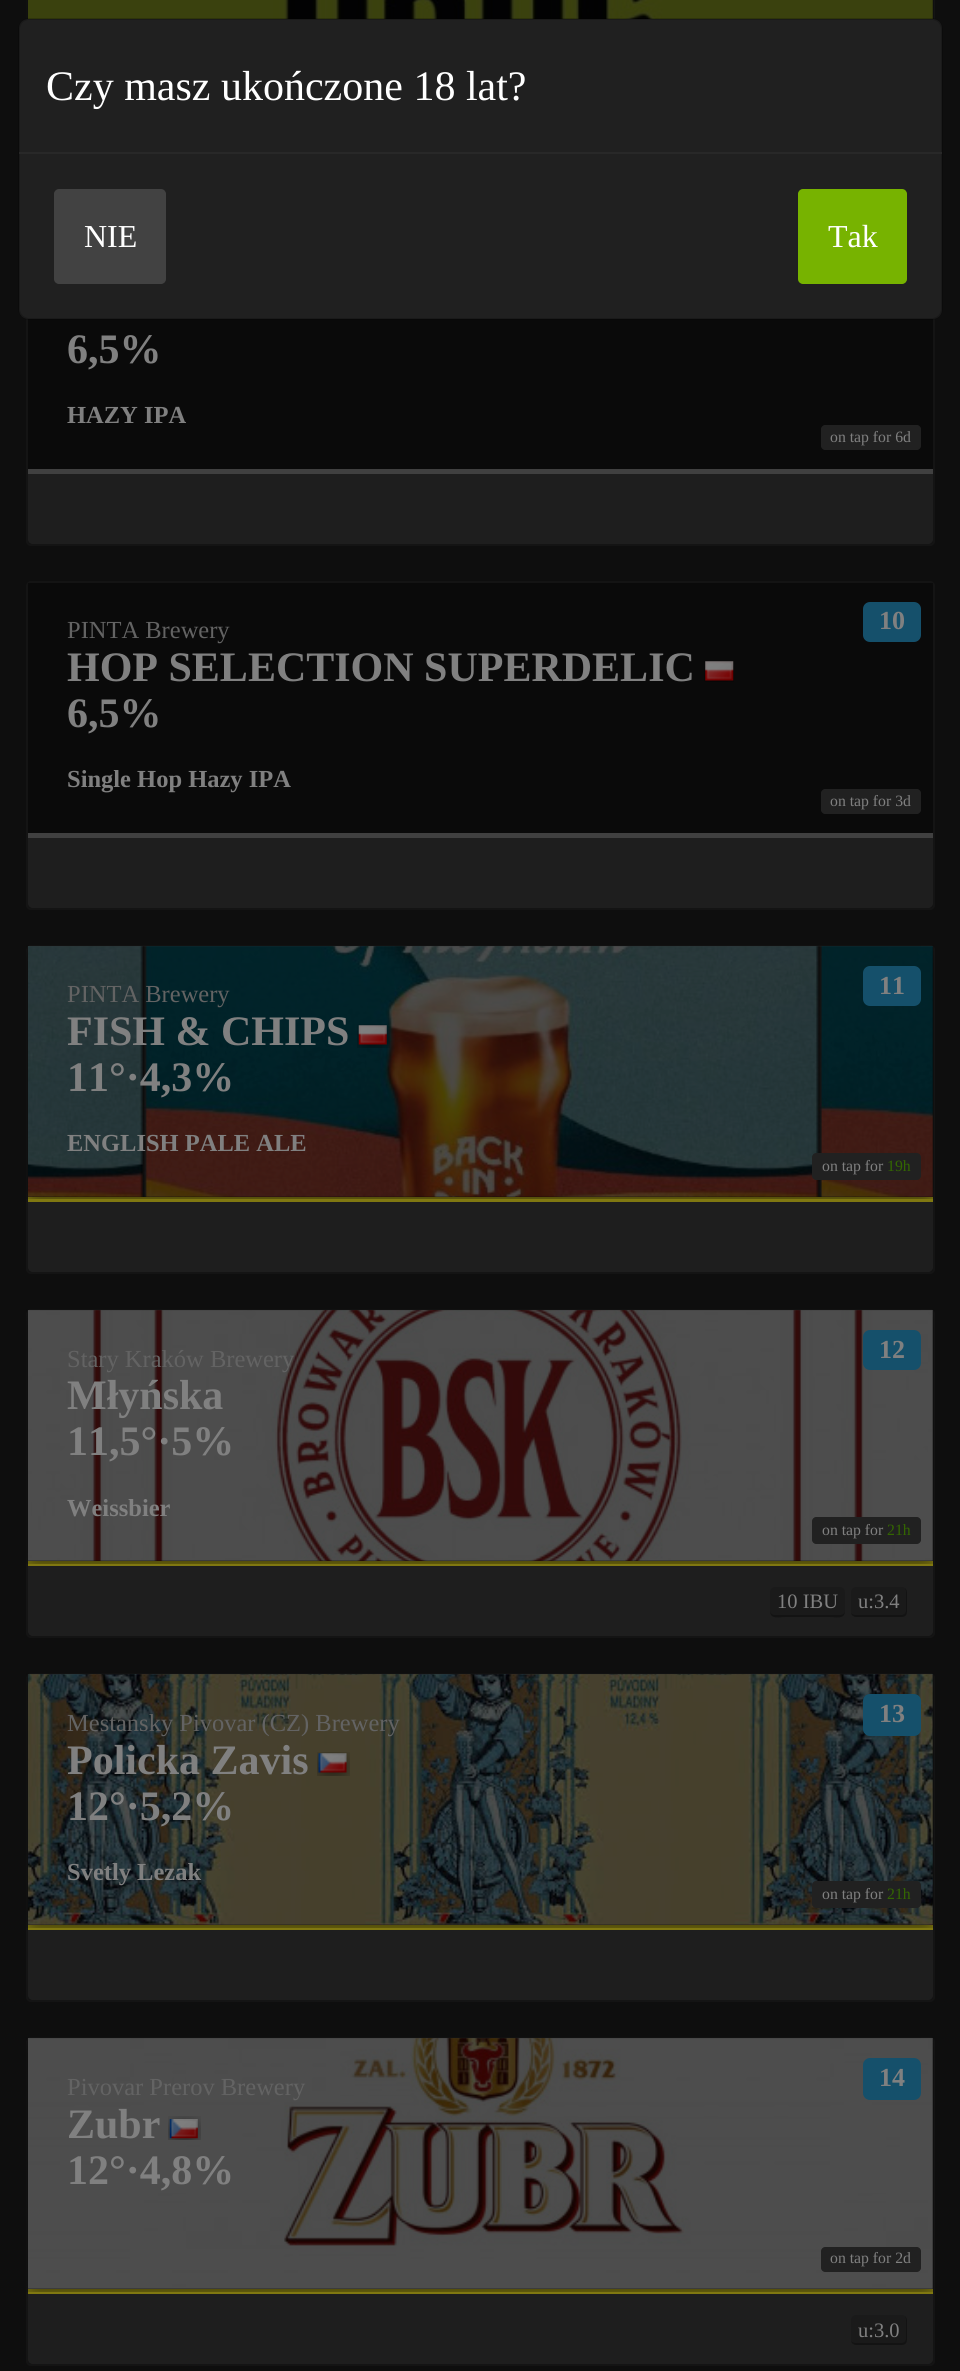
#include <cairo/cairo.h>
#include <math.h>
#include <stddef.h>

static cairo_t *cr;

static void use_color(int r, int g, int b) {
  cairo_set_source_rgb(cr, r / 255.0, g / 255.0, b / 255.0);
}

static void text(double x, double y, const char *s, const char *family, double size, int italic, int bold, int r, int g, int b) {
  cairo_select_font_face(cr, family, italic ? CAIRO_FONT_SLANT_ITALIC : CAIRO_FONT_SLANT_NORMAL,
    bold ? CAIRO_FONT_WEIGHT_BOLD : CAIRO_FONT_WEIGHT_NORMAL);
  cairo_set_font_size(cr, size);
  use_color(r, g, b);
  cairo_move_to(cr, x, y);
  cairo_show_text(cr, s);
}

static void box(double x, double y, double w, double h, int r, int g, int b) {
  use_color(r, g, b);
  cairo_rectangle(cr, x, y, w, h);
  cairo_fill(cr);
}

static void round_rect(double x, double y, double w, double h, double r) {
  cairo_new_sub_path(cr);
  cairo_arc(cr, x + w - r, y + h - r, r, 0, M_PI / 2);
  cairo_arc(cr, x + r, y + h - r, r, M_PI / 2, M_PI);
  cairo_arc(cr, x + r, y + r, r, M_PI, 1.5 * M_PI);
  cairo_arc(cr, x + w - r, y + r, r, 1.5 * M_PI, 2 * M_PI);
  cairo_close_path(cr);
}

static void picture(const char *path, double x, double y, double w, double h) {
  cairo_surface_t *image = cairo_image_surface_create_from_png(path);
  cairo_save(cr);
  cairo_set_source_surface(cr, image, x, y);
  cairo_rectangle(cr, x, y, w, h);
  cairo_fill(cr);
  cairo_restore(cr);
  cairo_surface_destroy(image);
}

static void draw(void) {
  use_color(14, 14, 14);
  cairo_paint(cr);
  cairo_rectangle(cr, 27, -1, 907, 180);
  use_color(20, 20, 20);
  cairo_stroke(cr);
  picture("img_01.png", 26, 0, 908, 20);
  use_color(17, 17, 17);
  round_rect(27, 216, 907, 329, 4);
  cairo_fill_preserve(cr);
  use_color(20, 20, 20);
  cairo_stroke(cr);
  use_color(32, 32, 32);
  round_rect(19, 19, 923, 300, 9);
  cairo_fill(cr);
  cairo_set_source_rgba(cr, 0, 0, 0, 0.4);
  cairo_rectangle(cr, 28, 319, 905, 150);
  cairo_fill(cr);
  round_rect(19, 19, 923, 300, 10);
  cairo_set_source_rgba(cr, 0, 0, 0, 0.2);
  cairo_stroke(cr);
  box(19, 152, 923, 2, 40, 40, 40);
  use_color(66, 66, 66);
  round_rect(55, 190, 110, 93, 4);
  cairo_fill_preserve(cr);
  cairo_stroke(cr);
  use_color(119, 179, 0);
  round_rect(799, 190, 107, 93, 4);
  cairo_fill_preserve(cr);
  cairo_stroke(cr);
  use_color(33, 33, 33);
  cairo_new_path(cr);
  cairo_move_to(cr, 825, 425);
  cairo_line_to(cr, 896, 425);
  cairo_line_to(cr, 896, 450);
  cairo_line_to(cr, 825, 450);
  cairo_curve_to(cr, 823, 450, 821, 448, 821, 446);
  cairo_line_to(cr, 821, 429);
  cairo_curve_to(cr, 821, 427, 823, 425, 825, 425);
  cairo_close_path(cr);
  cairo_fill(cr);
  cairo_new_path(cr);
  cairo_move_to(cr, 896, 425);
  cairo_line_to(cr, 917, 425);
  cairo_curve_to(cr, 919, 425, 921, 427, 921, 429);
  cairo_line_to(cr, 921, 446);
  cairo_curve_to(cr, 921, 448, 919, 450, 917, 450);
  cairo_line_to(cr, 896, 450);
  cairo_close_path(cr);
  cairo_fill(cr);
  use_color(30, 30, 30);
  cairo_new_path(cr);
  cairo_move_to(cr, 28, 469);
  cairo_line_to(cr, 933, 469);
  cairo_line_to(cr, 933, 539);
  cairo_curve_to(cr, 933, 542, 931, 544, 928, 544);
  cairo_line_to(cr, 33, 544);
  cairo_curve_to(cr, 30, 544, 28, 542, 28, 539);
  cairo_close_path(cr);
  cairo_fill(cr);
  box(28, 469, 905, 5, 64, 64, 64);
  use_color(17, 17, 17);
  round_rect(27, 582, 907, 327, 4);
  cairo_fill_preserve(cr);
  use_color(20, 20, 20);
  cairo_stroke(cr);
  cairo_set_source_rgba(cr, 0, 0, 0, 0.4);
  cairo_rectangle(cr, 28, 583, 905, 250);
  cairo_fill(cr);
  picture("img_02.png", 704, 661, 30, 21);
  use_color(21, 80, 107);
  round_rect(863, 602, 58, 40, 7);
  cairo_fill(cr);
  use_color(33, 33, 33);
  cairo_new_path(cr);
  cairo_move_to(cr, 825, 789);
  cairo_line_to(cr, 896, 789);
  cairo_line_to(cr, 896, 814);
  cairo_line_to(cr, 825, 814);
  cairo_curve_to(cr, 823, 814, 821, 812, 821, 810);
  cairo_line_to(cr, 821, 793);
  cairo_curve_to(cr, 821, 791, 823, 789, 825, 789);
  cairo_close_path(cr);
  cairo_fill(cr);
  cairo_new_path(cr);
  cairo_move_to(cr, 896, 789);
  cairo_line_to(cr, 917, 789);
  cairo_curve_to(cr, 919, 789, 921, 791, 921, 793);
  cairo_line_to(cr, 921, 810);
  cairo_curve_to(cr, 921, 812, 919, 814, 917, 814);
  cairo_line_to(cr, 896, 814);
  cairo_close_path(cr);
  cairo_fill(cr);
  use_color(30, 30, 30);
  cairo_new_path(cr);
  cairo_move_to(cr, 28, 833);
  cairo_line_to(cr, 933, 833);
  cairo_line_to(cr, 933, 903);
  cairo_curve_to(cr, 933, 906, 931, 908, 928, 908);
  cairo_line_to(cr, 33, 908);
  cairo_curve_to(cr, 30, 908, 28, 906, 28, 903);
  cairo_close_path(cr);
  cairo_fill(cr);
  box(28, 833, 905, 5, 64, 64, 64);
  use_color(17, 17, 17);
  round_rect(27, 946, 907, 327, 4);
  cairo_fill_preserve(cr);
  use_color(20, 20, 20);
  cairo_stroke(cr);
  use_color(30, 30, 30);
  cairo_new_path(cr);
  cairo_move_to(cr, 28, 1197);
  cairo_line_to(cr, 933, 1197);
  cairo_line_to(cr, 933, 1267);
  cairo_curve_to(cr, 933, 1270, 931, 1272, 928, 1272);
  cairo_line_to(cr, 33, 1272);
  cairo_curve_to(cr, 30, 1272, 28, 1270, 28, 1267);
  cairo_close_path(cr);
  cairo_fill(cr);
  box(28, 1197, 905, 5, 128, 120, 17);
  picture("img_03.png", 26, 945, 908, 254);
  cairo_set_source_rgba(cr, 0, 0, 0, 0.4);
  cairo_rectangle(cr, 28, 947, 905, 250);
  cairo_fill(cr);
  picture("img_04.png", 357, 1024, 33, 24);
  use_color(21, 80, 107);
  round_rect(863, 966, 58, 40, 7);
  cairo_fill(cr);
  use_color(33, 33, 33);
  cairo_new_path(cr);
  cairo_move_to(cr, 816, 1153);
  cairo_line_to(cr, 887, 1153);
  cairo_line_to(cr, 887, 1180);
  cairo_line_to(cr, 816, 1180);
  cairo_curve_to(cr, 814, 1180, 812, 1178, 812, 1176);
  cairo_line_to(cr, 812, 1157);
  cairo_curve_to(cr, 812, 1155, 814, 1153, 816, 1153);
  cairo_close_path(cr);
  cairo_fill(cr);
  cairo_new_path(cr);
  cairo_move_to(cr, 887, 1153);
  cairo_line_to(cr, 917, 1153);
  cairo_curve_to(cr, 919, 1153, 921, 1155, 921, 1157);
  cairo_line_to(cr, 921, 1176);
  cairo_curve_to(cr, 921, 1178, 919, 1180, 917, 1180);
  cairo_line_to(cr, 887, 1180);
  cairo_close_path(cr);
  cairo_fill(cr);
  use_color(17, 17, 17);
  round_rect(27, 1310, 907, 327, 4);
  cairo_fill_preserve(cr);
  use_color(20, 20, 20);
  cairo_stroke(cr);
  use_color(30, 30, 30);
  cairo_new_path(cr);
  cairo_move_to(cr, 28, 1561);
  cairo_line_to(cr, 933, 1561);
  cairo_line_to(cr, 933, 1631);
  cairo_curve_to(cr, 933, 1634, 931, 1636, 928, 1636);
  cairo_line_to(cr, 33, 1636);
  cairo_curve_to(cr, 30, 1636, 28, 1634, 28, 1631);
  cairo_close_path(cr);
  cairo_fill(cr);
  box(28, 1561, 905, 5, 128, 120, 17);
  picture("img_05.png", 26, 1309, 908, 255);
  cairo_set_source_rgba(cr, 0, 0, 0, 0.4);
  cairo_rectangle(cr, 28, 1311, 905, 250);
  cairo_fill(cr);
  use_color(21, 80, 107);
  round_rect(863, 1330, 58, 40, 7);
  cairo_fill(cr);
  use_color(33, 33, 33);
  cairo_new_path(cr);
  cairo_move_to(cr, 816, 1517);
  cairo_line_to(cr, 887, 1517);
  cairo_line_to(cr, 887, 1544);
  cairo_line_to(cr, 816, 1544);
  cairo_curve_to(cr, 814, 1544, 812, 1542, 812, 1540);
  cairo_line_to(cr, 812, 1521);
  cairo_curve_to(cr, 812, 1519, 814, 1517, 816, 1517);
  cairo_close_path(cr);
  cairo_fill(cr);
  cairo_new_path(cr);
  cairo_move_to(cr, 887, 1517);
  cairo_line_to(cr, 917, 1517);
  cairo_curve_to(cr, 919, 1517, 921, 1519, 921, 1521);
  cairo_line_to(cr, 921, 1540);
  cairo_curve_to(cr, 921, 1542, 919, 1544, 917, 1544);
  cairo_line_to(cr, 887, 1544);
  cairo_close_path(cr);
  cairo_fill(cr);
  use_color(26, 26, 26);
  round_rect(770, 1587, 75, 30, 5);
  cairo_fill(cr);
  use_color(19, 19, 19);
  cairo_new_path(cr);
  cairo_move_to(cr, 770, 1610);
  cairo_curve_to(cr, 770, 1620, 778, 1617, 786, 1617);
  cairo_line_to(cr, 829, 1617);
  cairo_curve_to(cr, 837, 1617, 845, 1620, 845, 1610);
  cairo_curve_to(cr, 845, 1613, 843, 1615, 840, 1615);
  cairo_line_to(cr, 775, 1615);
  cairo_curve_to(cr, 772, 1615, 770, 1613, 770, 1610);
  cairo_close_path(cr);
  cairo_fill(cr);
  use_color(26, 26, 26);
  round_rect(851, 1587, 56, 30, 5);
  cairo_fill(cr);
  cairo_set_source_rgba(cr, 0, 0, 0, 0.25);
  cairo_new_path(cr);
  cairo_move_to(cr, 851, 1613);
  cairo_curve_to(cr, 852, 1614, 854, 1615, 856, 1615);
  cairo_line_to(cr, 901, 1615);
  cairo_curve_to(cr, 904, 1615, 906, 1613, 906, 1610);
  cairo_line_to(cr, 906, 1591);
  cairo_line_to(cr, 905, 1588);
  cairo_curve_to(cr, 906, 1589, 907, 1591, 907, 1592);
  cairo_line_to(cr, 907, 1612);
  cairo_curve_to(cr, 907, 1615, 905, 1617, 902, 1617);
  cairo_line_to(cr, 856, 1617);
  cairo_curve_to(cr, 854, 1617, 851, 1615, 851, 1613);
  cairo_close_path(cr);
  cairo_fill(cr);
  use_color(17, 17, 17);
  round_rect(27, 1674, 907, 327, 4);
  cairo_fill_preserve(cr);
  use_color(20, 20, 20);
  cairo_stroke(cr);
  use_color(30, 30, 30);
  cairo_new_path(cr);
  cairo_move_to(cr, 28, 1925);
  cairo_line_to(cr, 933, 1925);
  cairo_line_to(cr, 933, 1995);
  cairo_curve_to(cr, 933, 1998, 931, 2000, 928, 2000);
  cairo_line_to(cr, 33, 2000);
  cairo_curve_to(cr, 30, 2000, 28, 1998, 28, 1995);
  cairo_close_path(cr);
  cairo_fill(cr);
  box(28, 1925, 905, 5, 128, 120, 17);
  picture("img_06.png", 26, 1673, 908, 255);
  cairo_set_source_rgba(cr, 0, 0, 0, 0.4);
  cairo_rectangle(cr, 28, 1675, 905, 250);
  cairo_fill(cr);
  picture("img_07.png", 317, 1752, 33, 24);
  use_color(21, 80, 107);
  round_rect(863, 1694, 58, 42, 7);
  cairo_fill(cr);
  use_color(33, 33, 33);
  cairo_new_path(cr);
  cairo_move_to(cr, 816, 1881);
  cairo_line_to(cr, 887, 1881);
  cairo_line_to(cr, 887, 1908);
  cairo_line_to(cr, 816, 1908);
  cairo_curve_to(cr, 814, 1908, 812, 1906, 812, 1904);
  cairo_line_to(cr, 812, 1885);
  cairo_curve_to(cr, 812, 1883, 814, 1881, 816, 1881);
  cairo_close_path(cr);
  cairo_fill(cr);
  cairo_new_path(cr);
  cairo_move_to(cr, 887, 1881);
  cairo_line_to(cr, 917, 1881);
  cairo_curve_to(cr, 919, 1881, 921, 1883, 921, 1885);
  cairo_line_to(cr, 921, 1904);
  cairo_curve_to(cr, 921, 1906, 919, 1908, 917, 1908);
  cairo_line_to(cr, 887, 1908);
  cairo_close_path(cr);
  cairo_fill(cr);
  use_color(17, 17, 17);
  round_rect(27, 2038, 907, 327, 4);
  cairo_fill_preserve(cr);
  use_color(20, 20, 20);
  cairo_stroke(cr);
  use_color(30, 30, 30);
  cairo_new_path(cr);
  cairo_move_to(cr, 28, 2289);
  cairo_line_to(cr, 933, 2289);
  cairo_line_to(cr, 933, 2359);
  cairo_curve_to(cr, 933, 2362, 931, 2364, 928, 2364);
  cairo_line_to(cr, 33, 2364);
  cairo_curve_to(cr, 30, 2364, 28, 2362, 28, 2359);
  cairo_close_path(cr);
  cairo_fill(cr);
  box(28, 2289, 905, 5, 128, 120, 17);
  picture("img_08.png", 26, 2037, 908, 255);
  cairo_set_source_rgba(cr, 0, 0, 0, 0.4);
  cairo_rectangle(cr, 28, 2039, 905, 250);
  cairo_fill(cr);
  picture("img_09.png", 168, 2116, 33, 24);
  use_color(21, 80, 107);
  round_rect(863, 2058, 58, 42, 7);
  cairo_fill(cr);
  use_color(33, 33, 33);
  cairo_new_path(cr);
  cairo_move_to(cr, 825, 2247);
  cairo_line_to(cr, 896, 2247);
  cairo_line_to(cr, 896, 2272);
  cairo_line_to(cr, 825, 2272);
  cairo_curve_to(cr, 823, 2272, 821, 2270, 821, 2268);
  cairo_line_to(cr, 821, 2251);
  cairo_curve_to(cr, 821, 2249, 823, 2247, 825, 2247);
  cairo_close_path(cr);
  cairo_fill(cr);
  cairo_new_path(cr);
  cairo_move_to(cr, 896, 2247);
  cairo_line_to(cr, 917, 2247);
  cairo_curve_to(cr, 919, 2247, 921, 2249, 921, 2251);
  cairo_line_to(cr, 921, 2268);
  cairo_curve_to(cr, 921, 2270, 919, 2272, 917, 2272);
  cairo_line_to(cr, 896, 2272);
  cairo_close_path(cr);
  cairo_fill(cr);
  use_color(26, 26, 26);
  round_rect(851, 2315, 56, 30, 5);
  cairo_fill(cr);
  cairo_set_source_rgba(cr, 0, 0, 0, 0.25);
  cairo_new_path(cr);
  cairo_move_to(cr, 851, 2341);
  cairo_curve_to(cr, 852, 2342, 854, 2343, 856, 2343);
  cairo_line_to(cr, 901, 2343);
  cairo_curve_to(cr, 904, 2343, 906, 2341, 906, 2338);
  cairo_line_to(cr, 906, 2319);
  cairo_line_to(cr, 905, 2316);
  cairo_curve_to(cr, 906, 2317, 907, 2319, 907, 2320);
  cairo_line_to(cr, 907, 2340);
  cairo_curve_to(cr, 907, 2343, 905, 2345, 902, 2345);
  cairo_line_to(cr, 856, 2345);
  cairo_curve_to(cr, 854, 2345, 851, 2343, 851, 2341);
  cairo_close_path(cr);
  cairo_fill(cr);
  text(46, 100, "Czy masz ukończone 18 lat?", "Liberation Serif", 42, 0, 0, 255, 255, 255);
  text(84, 247, "NIE", "Liberation Serif", 32, 0, 0, 255, 255, 255);
  text(828, 247, "Tak", "Liberation Serif", 32, 0, 0, 255, 255, 255);
  text(67, 363, "6,5%", "Liberation Serif", 42, 0, 1, 128, 128, 128);
  text(67, 423, "HAZY IPA", "Liberation Serif", 24.5, 0, 1, 128, 128, 128);
  text(830, 442, "on tap for 6d", "Liberation Serif", 15.75, 0, 0, 128, 128, 128);
  text(67, 638, "PINTA Brewery", "Liberation Serif", 24.5, 0, 0, 99, 99, 99);
  text(67, 681, "HOP SELECTION SUPERDELIC", "Liberation Serif", 42, 0, 1, 128, 128, 128);
  text(67, 727, "6,5%", "Liberation Serif", 42, 0, 1, 128, 128, 128);
  text(879, 629, "10", "Liberation Serif", 26, 0, 1, 128, 128, 128);
  text(67, 787, "Single Hop Hazy IPA", "Liberation Serif", 24.5, 0, 1, 128, 128, 128);
  text(830, 806, "on tap for 3d", "Liberation Serif", 15.75, 0, 0, 128, 128, 128);
  text(67, 1002, "PINTA Brewery", "Liberation Serif", 24.5, 0, 0, 99, 99, 99);
  text(67, 1045, "FISH & CHIPS", "Liberation Serif", 42, 0, 1, 128, 128, 128);
  text(67, 1091, "11°·4,3%", "Liberation Serif", 42, 0, 1, 128, 128, 128);
  text(879, 994, "11", "Liberation Serif", 26, 0, 1, 128, 128, 128);
  text(67, 1151, "ENGLISH PALE ALE", "Liberation Serif", 24.5, 0, 1, 128, 128, 128);
  text(822, 1171, "on tap for", "Liberation Serif", 15.75, 0, 0, 128, 128, 128);
  text(887, 1171, "19h", "Liberation Serif", 15.75, 0, 0, 51, 102, 0);
  text(67, 1367, "Stary Kraków Brewery", "Liberation Serif", 24.5, 0, 0, 99, 99, 99);
  text(67, 1409, "Młyńska", "Liberation Serif", 42, 0, 1, 128, 128, 128);
  text(67, 1455, "11,5°·5%", "Liberation Serif", 42, 0, 1, 128, 128, 128);
  text(879, 1358, "12", "Liberation Serif", 26, 0, 1, 128, 128, 128);
  text(67, 1516, "Weissbier", "Liberation Serif", 24.5, 0, 1, 128, 128, 128);
  text(822, 1535, "on tap for", "Liberation Serif", 15.75, 0, 0, 128, 128, 128);
  text(887, 1535, "21h", "Liberation Serif", 15.75, 0, 0, 51, 102, 0);
  text(777, 1608, "10 IBU", "Liberation Serif", 20.5, 0, 0, 128, 128, 128);
  text(858, 1608, "u:3.4", "Liberation Serif", 20.5, 0, 0, 128, 128, 128);
  text(67, 1731, "Mestansky Pivovar (CZ) Brewery", "Liberation Serif", 24.5, 0, 0, 99, 99, 99);
  text(67, 1774, "Policka Zavis", "Liberation Serif", 42, 0, 1, 128, 128, 128);
  text(67, 1820, "12°·5,2%", "Liberation Serif", 42, 0, 1, 128, 128, 128);
  text(879, 1722, "13", "Liberation Serif", 26, 0, 1, 128, 128, 128);
  text(67, 1880, "Svetly Lezak", "Liberation Serif", 24.5, 0, 1, 128, 128, 128);
  text(822, 1899, "on tap for", "Liberation Serif", 15.75, 0, 0, 128, 128, 128);
  text(887, 1899, "21h", "Liberation Serif", 15.75, 0, 0, 51, 102, 0);
  text(67, 2095, "Pivovar Prerov Brewery", "Liberation Serif", 24.5, 0, 0, 99, 99, 99);
  text(67, 2138, "Zubr", "Liberation Serif", 42, 0, 1, 128, 128, 128);
  text(67, 2184, "12°·4,8%", "Liberation Serif", 42, 0, 1, 128, 128, 128);
  text(879, 2086, "14", "Liberation Serif", 26, 0, 1, 128, 128, 128);
  text(830, 2263, "on tap for 2d", "Liberation Serif", 15.75, 0, 0, 128, 128, 128);
  text(858, 2337, "u:3.0", "Liberation Serif", 20.5, 0, 0, 128, 128, 128);
}

int main(void) {
  cairo_surface_t *surface = cairo_image_surface_create(CAIRO_FORMAT_RGB24, 960, 2371);
  cr = cairo_create(surface);
  cairo_font_options_t *options = cairo_font_options_create();
  cairo_font_options_set_hint_metrics(options, CAIRO_HINT_METRICS_OFF);
  cairo_font_options_set_hint_style(options, CAIRO_HINT_STYLE_NONE);
  cairo_set_font_options(cr, options);
  cairo_set_miter_limit(cr, 4);
  draw();
  cairo_surface_write_to_png(surface, "out.png");
  cairo_font_options_destroy(options);
  cairo_destroy(cr);
  cairo_surface_destroy(surface);
  return 0;
}
